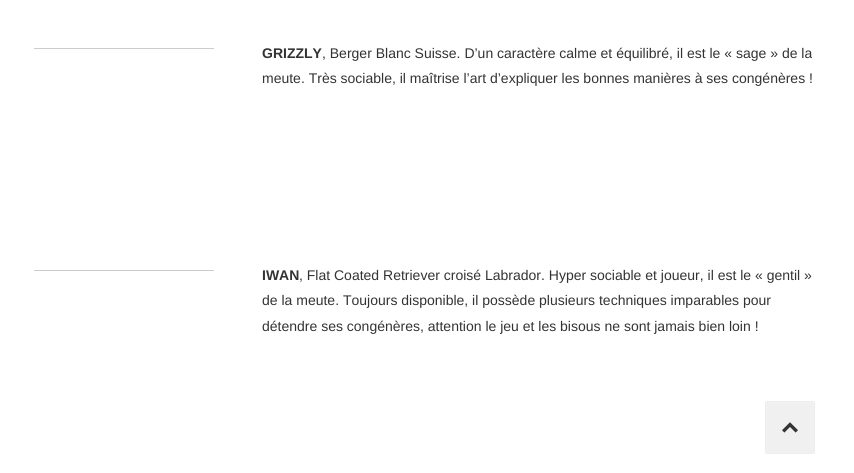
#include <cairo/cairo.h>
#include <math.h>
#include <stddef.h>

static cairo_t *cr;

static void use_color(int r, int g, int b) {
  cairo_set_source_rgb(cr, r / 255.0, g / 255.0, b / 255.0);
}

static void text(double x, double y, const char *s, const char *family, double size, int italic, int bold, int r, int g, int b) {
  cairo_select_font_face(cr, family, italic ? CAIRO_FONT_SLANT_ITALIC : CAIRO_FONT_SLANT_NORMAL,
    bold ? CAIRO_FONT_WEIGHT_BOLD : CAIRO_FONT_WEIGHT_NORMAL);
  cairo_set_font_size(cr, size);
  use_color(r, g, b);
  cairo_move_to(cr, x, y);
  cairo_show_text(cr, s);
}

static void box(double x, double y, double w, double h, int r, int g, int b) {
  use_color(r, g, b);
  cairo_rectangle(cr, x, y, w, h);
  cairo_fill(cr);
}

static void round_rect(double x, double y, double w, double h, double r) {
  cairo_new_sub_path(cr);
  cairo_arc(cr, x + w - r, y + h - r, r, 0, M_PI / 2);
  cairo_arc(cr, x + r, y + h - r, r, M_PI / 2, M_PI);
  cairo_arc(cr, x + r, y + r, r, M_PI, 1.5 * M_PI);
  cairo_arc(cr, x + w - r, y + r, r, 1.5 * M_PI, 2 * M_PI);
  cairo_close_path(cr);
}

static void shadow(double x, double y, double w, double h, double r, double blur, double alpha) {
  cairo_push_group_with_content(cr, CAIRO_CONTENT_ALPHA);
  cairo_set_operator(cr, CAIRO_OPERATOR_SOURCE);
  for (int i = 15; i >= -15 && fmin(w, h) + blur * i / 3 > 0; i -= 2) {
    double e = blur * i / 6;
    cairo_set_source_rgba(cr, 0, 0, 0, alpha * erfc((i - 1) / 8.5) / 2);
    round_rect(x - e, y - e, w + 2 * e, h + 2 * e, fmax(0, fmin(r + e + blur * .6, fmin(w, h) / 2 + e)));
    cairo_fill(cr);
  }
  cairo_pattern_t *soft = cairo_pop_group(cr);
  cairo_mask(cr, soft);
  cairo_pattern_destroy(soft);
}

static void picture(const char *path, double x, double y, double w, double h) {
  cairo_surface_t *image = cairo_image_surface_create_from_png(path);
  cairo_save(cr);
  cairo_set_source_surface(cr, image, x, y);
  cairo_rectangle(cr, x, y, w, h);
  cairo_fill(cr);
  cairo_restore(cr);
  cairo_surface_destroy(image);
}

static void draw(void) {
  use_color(255, 255, 255);
  cairo_paint(cr);
  box(34, 48, 180, 1, 204, 204, 204);
  box(34, 270, 180, 1, 204, 204, 204);
  use_color(0, 0, 0);
  shadow(766, 402, 48, 51, 0, 0.5, 0.28);
  use_color(240, 240, 240);
  cairo_rectangle(cr, 766.5, 402.5, 47, 50);
  cairo_fill_preserve(cr);
  use_color(242, 242, 242);
  cairo_set_line_width(cr, 1);
  cairo_stroke(cr);
  picture("img_01.png", 782, 422, 16, 11);
  text(262, 58, "GRIZZLY", "Liberation Sans", 14, 0, 1, 51, 51, 51);
  text(322, 58, ", Berger Blanc Suisse. D’un caractère calme et équilibré, il est le « sage » de la", "Liberation Sans", 14, 0, 0, 51, 51, 51);
  text(262, 83, "meute. Très sociable, il maîtrise l’art d’expliquer les bonnes manières à ses congénères !", "Liberation Sans", 14, 0, 0, 51, 51, 51);
  text(262, 280, "IWAN", "Liberation Sans", 14, 0, 1, 51, 51, 51);
  text(299, 280, ", Flat Coated Retriever croisé Labrador. Hyper sociable et joueur, il est le « gentil »", "Liberation Sans", 14, 0, 0, 51, 51, 51);
  text(262, 305, "de la meute. Toujours disponible, il possède plusieurs techniques imparables pour", "Liberation Sans", 14, 0, 0, 51, 51, 51);
  text(262, 331, "détendre ses congénères, attention le jeu et les bisous ne sont jamais bien loin !", "Liberation Sans", 14, 0, 0, 51, 51, 51);
}

int main(void) {
  cairo_surface_t *surface = cairo_image_surface_create(CAIRO_FORMAT_RGB24, 854, 473);
  cr = cairo_create(surface);
  cairo_font_options_t *options = cairo_font_options_create();
  cairo_font_options_set_hint_metrics(options, CAIRO_HINT_METRICS_OFF);
  cairo_font_options_set_hint_style(options, CAIRO_HINT_STYLE_NONE);
  cairo_set_font_options(cr, options);
  cairo_set_miter_limit(cr, 4);
  draw();
  cairo_surface_write_to_png(surface, "out.png");
  cairo_font_options_destroy(options);
  cairo_destroy(cr);
  cairo_surface_destroy(surface);
  return 0;
}
